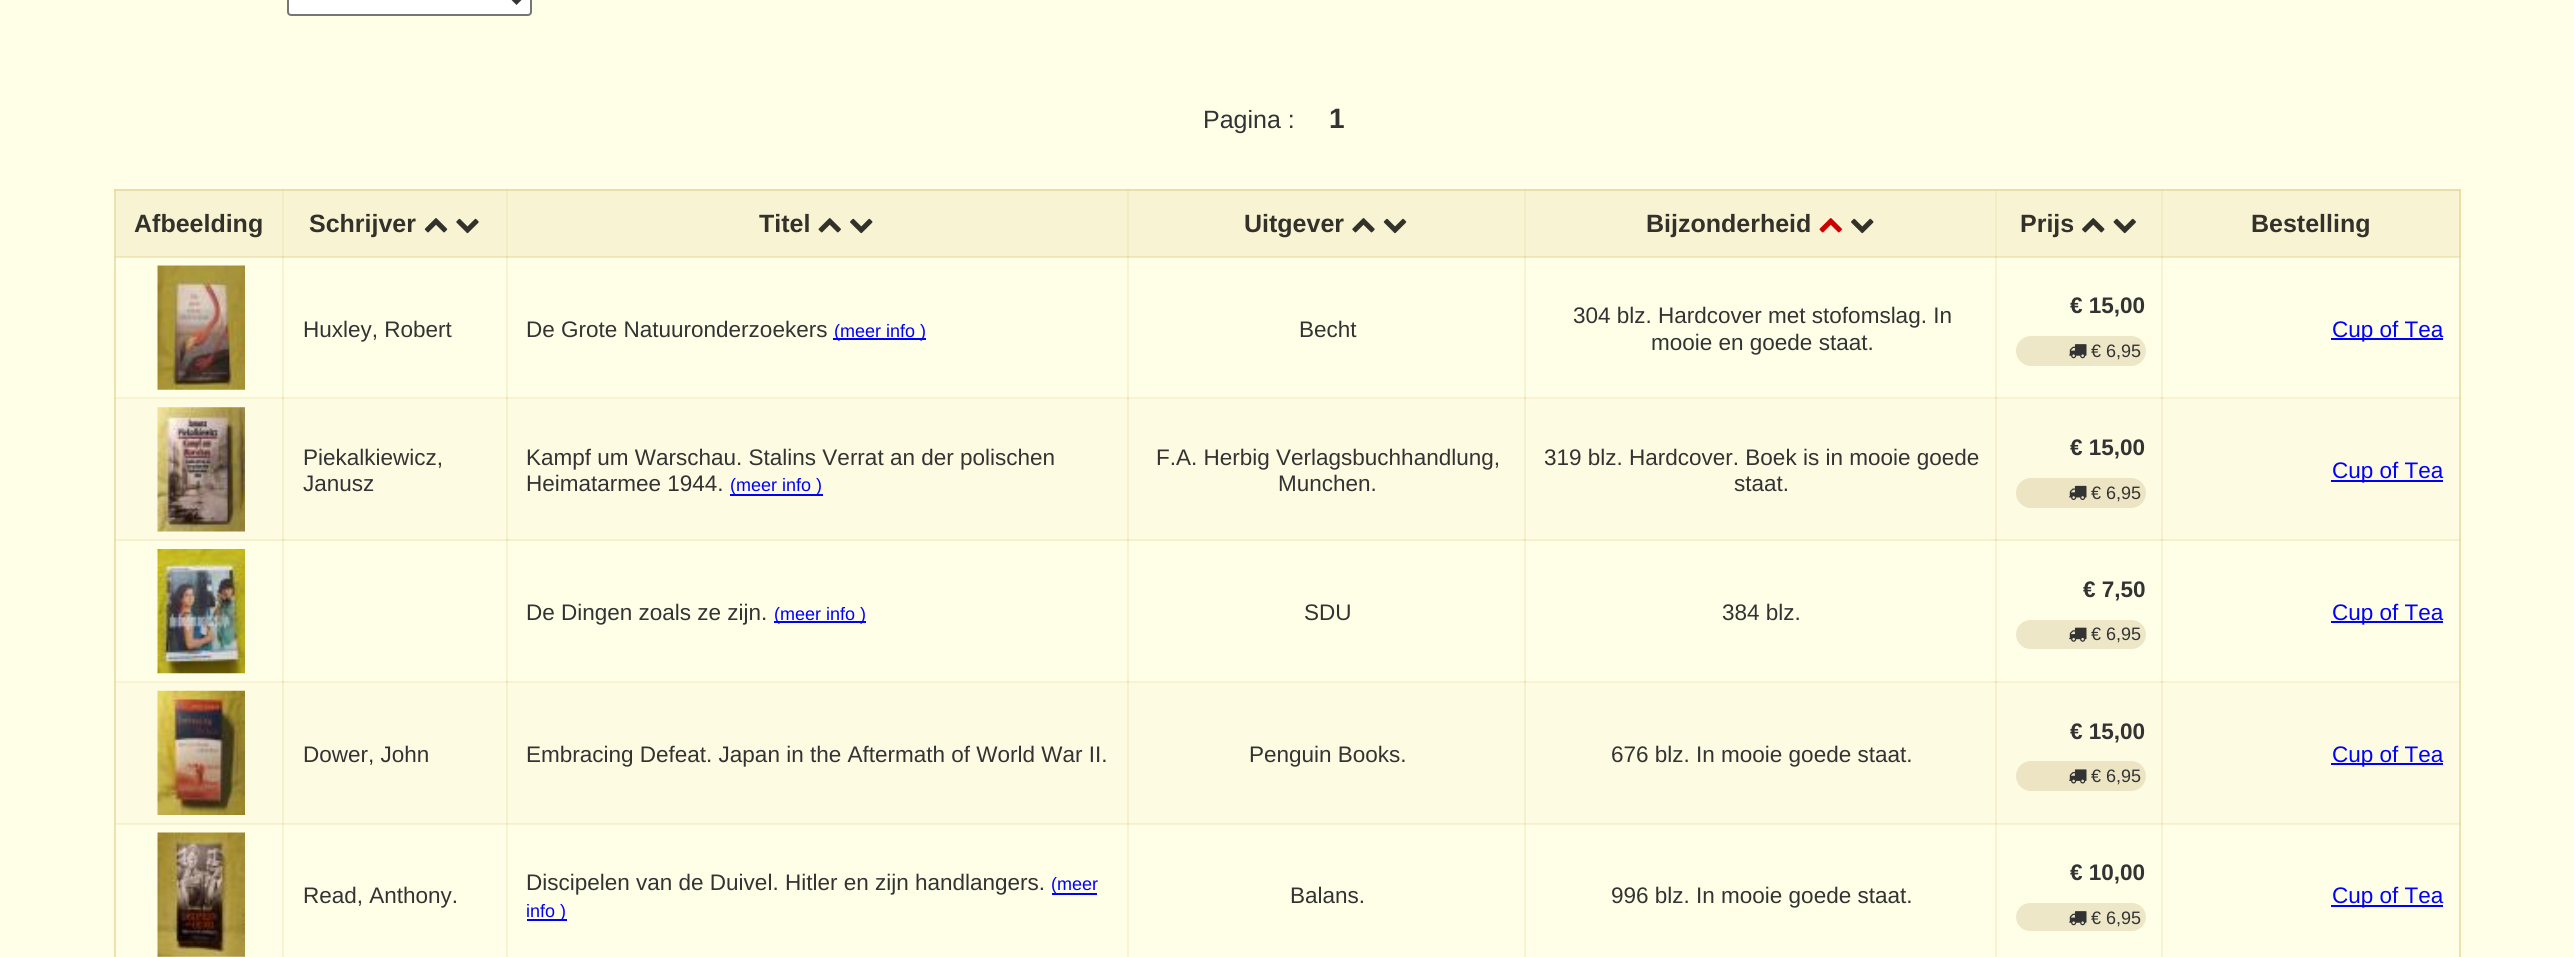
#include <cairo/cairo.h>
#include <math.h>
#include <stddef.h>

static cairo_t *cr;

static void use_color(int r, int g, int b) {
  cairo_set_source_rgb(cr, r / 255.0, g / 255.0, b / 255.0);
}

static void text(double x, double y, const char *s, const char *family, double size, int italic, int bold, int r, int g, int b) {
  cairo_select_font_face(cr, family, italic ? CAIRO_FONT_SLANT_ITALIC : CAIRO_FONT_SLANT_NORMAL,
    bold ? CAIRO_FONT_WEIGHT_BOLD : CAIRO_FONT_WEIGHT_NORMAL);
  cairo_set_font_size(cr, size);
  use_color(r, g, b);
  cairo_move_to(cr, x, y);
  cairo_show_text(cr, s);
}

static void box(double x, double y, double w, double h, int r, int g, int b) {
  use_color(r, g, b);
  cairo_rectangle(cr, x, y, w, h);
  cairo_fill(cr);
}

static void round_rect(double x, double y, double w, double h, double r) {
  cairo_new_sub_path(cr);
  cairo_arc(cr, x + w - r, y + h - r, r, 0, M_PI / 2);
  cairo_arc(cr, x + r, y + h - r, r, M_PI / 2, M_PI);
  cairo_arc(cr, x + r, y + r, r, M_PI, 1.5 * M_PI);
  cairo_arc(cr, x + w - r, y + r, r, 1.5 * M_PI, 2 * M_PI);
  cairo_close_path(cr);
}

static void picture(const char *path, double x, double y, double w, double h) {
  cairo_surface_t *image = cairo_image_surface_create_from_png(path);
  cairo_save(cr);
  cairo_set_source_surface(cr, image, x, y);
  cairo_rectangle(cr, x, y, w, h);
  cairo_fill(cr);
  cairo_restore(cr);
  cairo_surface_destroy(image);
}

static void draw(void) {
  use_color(255, 255, 232);
  cairo_paint(cr);
  box(114, 189, 2, 768, 238, 225, 176);
  box(114, 189, 2, 2, 234, 218, 162);
  use_color(255, 255, 255);
  round_rect(288, -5, 243, 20, 3);
  cairo_fill_preserve(cr);
  use_color(118, 118, 118);
  cairo_stroke(cr);
  cairo_new_path(cr);
  cairo_move_to(cr, 509.5, -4.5);
  cairo_line_to(cr, 516.5, 2.5);
  cairo_line_to(cr, 523.5, -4.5);
  use_color(51, 51, 51);
  cairo_set_line_width(cr, 3.5);
  cairo_stroke(cr);
  box(116, 191, 2343, 66, 248, 243, 210);
  box(116, 189, 2047, 2, 236, 222, 170);
  box(2459, 189, 2, 68, 236, 222, 170);
  box(2459, 257, 2, 142, 238, 225, 176);
  box(116, 399, 2343, 142, 253, 251, 226);
  box(2459, 399, 2, 142, 237, 224, 174);
  box(2459, 541, 2, 142, 238, 225, 176);
  box(116, 683, 2343, 141, 253, 251, 226);
  box(2161, 823, 2, 1, 247, 240, 205);
  box(2459, 683, 2, 141, 237, 224, 174);
  box(2161, 824, 2, 133, 248, 243, 209);
  box(2459, 824, 2, 133, 238, 225, 176);
  cairo_set_source_rgba(cr, 0.91, 0.843, 0.616, 0.3);
  cairo_rectangle(cr, 2161, 823, 300, 2);
  cairo_fill(cr);
  cairo_rectangle(cr, 2161, 681, 2, 143);
  cairo_fill(cr);
  cairo_rectangle(cr, 2161, 681, 300, 2);
  cairo_fill(cr);
  cairo_rectangle(cr, 2161, 539, 2, 144);
  cairo_fill(cr);
  cairo_rectangle(cr, 2161, 539, 300, 2);
  cairo_fill(cr);
  cairo_rectangle(cr, 2161, 397, 2, 144);
  cairo_fill(cr);
  cairo_rectangle(cr, 2161, 397, 300, 2);
  cairo_fill(cr);
  cairo_rectangle(cr, 2161, 256, 2, 143);
  cairo_fill(cr);
  cairo_set_source_rgba(cr, 0.91, 0.843, 0.616, 0.5);
  cairo_rectangle(cr, 2161, 256, 300, 2);
  cairo_fill(cr);
  cairo_set_source_rgba(cr, 0.91, 0.843, 0.616, 0.3);
  cairo_rectangle(cr, 2161, 189, 2, 68);
  cairo_fill(cr);
  box(1995, 823, 2, 1, 247, 240, 205);
  box(1995, 824, 2, 133, 248, 243, 209);
  cairo_set_source_rgba(cr, 0.91, 0.843, 0.616, 0.3);
  cairo_rectangle(cr, 1995, 823, 168, 2);
  cairo_fill(cr);
  cairo_rectangle(cr, 1995, 681, 2, 143);
  cairo_fill(cr);
  cairo_rectangle(cr, 1995, 681, 168, 2);
  cairo_fill(cr);
  cairo_rectangle(cr, 1995, 539, 2, 144);
  cairo_fill(cr);
  cairo_rectangle(cr, 1995, 539, 168, 2);
  cairo_fill(cr);
  cairo_rectangle(cr, 1995, 397, 2, 144);
  cairo_fill(cr);
  cairo_rectangle(cr, 1995, 397, 168, 2);
  cairo_fill(cr);
  cairo_rectangle(cr, 1995, 256, 2, 143);
  cairo_fill(cr);
  cairo_set_source_rgba(cr, 0.91, 0.843, 0.616, 0.5);
  cairo_rectangle(cr, 1995, 256, 168, 2);
  cairo_fill(cr);
  cairo_set_source_rgba(cr, 0.91, 0.843, 0.616, 0.3);
  cairo_rectangle(cr, 1995, 189, 2, 68);
  cairo_fill(cr);
  box(1524, 823, 2, 1, 247, 240, 205);
  box(1524, 824, 2, 133, 248, 243, 209);
  cairo_set_source_rgba(cr, 0.91, 0.843, 0.616, 0.3);
  cairo_rectangle(cr, 1524, 823, 473, 2);
  cairo_fill(cr);
  cairo_rectangle(cr, 1524, 681, 2, 143);
  cairo_fill(cr);
  cairo_rectangle(cr, 1524, 681, 473, 2);
  cairo_fill(cr);
  cairo_rectangle(cr, 1524, 539, 2, 144);
  cairo_fill(cr);
  cairo_rectangle(cr, 1524, 539, 473, 2);
  cairo_fill(cr);
  cairo_rectangle(cr, 1524, 397, 2, 144);
  cairo_fill(cr);
  cairo_rectangle(cr, 1524, 397, 473, 2);
  cairo_fill(cr);
  cairo_rectangle(cr, 1524, 256, 2, 143);
  cairo_fill(cr);
  cairo_set_source_rgba(cr, 0.91, 0.843, 0.616, 0.5);
  cairo_rectangle(cr, 1524, 256, 473, 2);
  cairo_fill(cr);
  cairo_set_source_rgba(cr, 0.91, 0.843, 0.616, 0.3);
  cairo_rectangle(cr, 1524, 189, 2, 68);
  cairo_fill(cr);
  box(1127, 823, 2, 1, 247, 240, 205);
  box(1127, 824, 2, 133, 248, 243, 209);
  cairo_set_source_rgba(cr, 0.91, 0.843, 0.616, 0.3);
  cairo_rectangle(cr, 1127, 823, 399, 2);
  cairo_fill(cr);
  cairo_rectangle(cr, 1127, 681, 2, 143);
  cairo_fill(cr);
  cairo_rectangle(cr, 1127, 681, 399, 2);
  cairo_fill(cr);
  cairo_rectangle(cr, 1127, 539, 2, 144);
  cairo_fill(cr);
  cairo_rectangle(cr, 1127, 539, 399, 2);
  cairo_fill(cr);
  cairo_rectangle(cr, 1127, 397, 2, 144);
  cairo_fill(cr);
  cairo_rectangle(cr, 1127, 397, 399, 2);
  cairo_fill(cr);
  cairo_rectangle(cr, 1127, 256, 2, 143);
  cairo_fill(cr);
  cairo_set_source_rgba(cr, 0.91, 0.843, 0.616, 0.5);
  cairo_rectangle(cr, 1127, 256, 399, 2);
  cairo_fill(cr);
  cairo_set_source_rgba(cr, 0.91, 0.843, 0.616, 0.3);
  cairo_rectangle(cr, 1127, 189, 2, 68);
  cairo_fill(cr);
  box(506, 823, 2, 1, 247, 240, 205);
  box(506, 824, 2, 133, 248, 243, 209);
  cairo_set_source_rgba(cr, 0.91, 0.843, 0.616, 0.3);
  cairo_rectangle(cr, 506, 823, 623, 2);
  cairo_fill(cr);
  cairo_rectangle(cr, 506, 681, 2, 143);
  cairo_fill(cr);
  cairo_rectangle(cr, 506, 681, 623, 2);
  cairo_fill(cr);
  cairo_rectangle(cr, 506, 539, 2, 144);
  cairo_fill(cr);
  cairo_rectangle(cr, 506, 539, 623, 2);
  cairo_fill(cr);
  cairo_rectangle(cr, 506, 397, 2, 144);
  cairo_fill(cr);
  cairo_rectangle(cr, 506, 397, 623, 2);
  cairo_fill(cr);
  cairo_rectangle(cr, 506, 256, 2, 143);
  cairo_fill(cr);
  cairo_set_source_rgba(cr, 0.91, 0.843, 0.616, 0.5);
  cairo_rectangle(cr, 506, 256, 623, 2);
  cairo_fill(cr);
  cairo_set_source_rgba(cr, 0.91, 0.843, 0.616, 0.3);
  cairo_rectangle(cr, 506, 189, 2, 68);
  cairo_fill(cr);
  box(282, 823, 2, 1, 247, 240, 205);
  box(282, 824, 2, 133, 248, 243, 209);
  cairo_set_source_rgba(cr, 0.91, 0.843, 0.616, 0.3);
  cairo_rectangle(cr, 282, 823, 226, 2);
  cairo_fill(cr);
  cairo_rectangle(cr, 282, 681, 2, 143);
  cairo_fill(cr);
  cairo_rectangle(cr, 282, 681, 226, 2);
  cairo_fill(cr);
  cairo_rectangle(cr, 282, 539, 2, 144);
  cairo_fill(cr);
  cairo_rectangle(cr, 282, 539, 226, 2);
  cairo_fill(cr);
  cairo_rectangle(cr, 282, 397, 2, 144);
  cairo_fill(cr);
  cairo_rectangle(cr, 282, 397, 226, 2);
  cairo_fill(cr);
  cairo_rectangle(cr, 282, 256, 2, 143);
  cairo_fill(cr);
  cairo_set_source_rgba(cr, 0.91, 0.843, 0.616, 0.5);
  cairo_rectangle(cr, 282, 256, 226, 2);
  cairo_fill(cr);
  cairo_set_source_rgba(cr, 0.91, 0.843, 0.616, 0.3);
  cairo_rectangle(cr, 282, 189, 2, 68);
  cairo_fill(cr);
  cairo_set_source_rgba(cr, 0.91, 0.843, 0.616, 0.5);
  cairo_rectangle(cr, 114, 256, 170, 2);
  cairo_fill(cr);
  picture("img_01.png", 424, 218, 24, 15);
  picture("img_02.png", 456, 218, 23, 16);
  picture("img_03.png", 818, 218, 23, 15);
  picture("img_04.png", 850, 218, 23, 16);
  picture("img_05.png", 1352, 218, 23, 15);
  picture("img_06.png", 1383, 218, 24, 16);
  picture("img_07.png", 1819, 218, 23, 15);
  picture("img_04.png", 1851, 218, 23, 16);
  picture("img_08.png", 2082, 218, 23, 15);
  picture("img_09.png", 2113, 218, 23, 16);
  box(2163, 189, 298, 2, 236, 222, 170);
  box(2459, 189, 2, 2, 233, 217, 160);
  cairo_set_source_rgba(cr, 0.91, 0.843, 0.616, 0.3);
  cairo_rectangle(cr, 114, 397, 170, 2);
  cairo_fill(cr);
  picture("img_10.png", 157, 265, 88, 125);
  box(833, 338, 93, 2, 0, 0, 255);
  use_color(237, 231, 199);
  round_rect(2016, 336, 130, 30, 15);
  cairo_fill(cr);
  picture("img_11.png", 2069, 344, 18, 15);
  box(2331, 338, 112, 2, 0, 0, 255);
  cairo_set_source_rgba(cr, 0.91, 0.843, 0.616, 0.3);
  cairo_rectangle(cr, 114, 539, 170, 2);
  cairo_fill(cr);
  picture("img_12.png", 157, 407, 88, 125);
  box(730, 494, 93, 2, 0, 0, 255);
  use_color(236, 228, 195);
  round_rect(2016, 478, 130, 30, 15);
  cairo_fill(cr);
  picture("img_13.png", 2069, 485, 18, 15);
  box(2331, 480, 112, 2, 0, 0, 255);
  cairo_set_source_rgba(cr, 0.91, 0.843, 0.616, 0.3);
  cairo_rectangle(cr, 114, 681, 170, 2);
  cairo_fill(cr);
  picture("img_14.png", 157, 549, 88, 125);
  box(774, 621, 92, 2, 0, 0, 255);
  use_color(237, 231, 199);
  round_rect(2016, 620, 130, 29, 14.5);
  cairo_fill(cr);
  picture("img_15.png", 2069, 627, 18, 15);
  box(2331, 621, 112, 2, 0, 0, 255);
  cairo_set_source_rgba(cr, 0.91, 0.843, 0.616, 0.3);
  cairo_rectangle(cr, 114, 823, 170, 2);
  cairo_fill(cr);
  picture("img_16.png", 157, 690, 88, 125);
  use_color(236, 228, 195);
  round_rect(2016, 761, 130, 30, 15);
  cairo_fill(cr);
  picture("img_17.png", 2069, 769, 18, 15);
  box(2331, 763, 112, 2, 0, 0, 255);
  picture("img_18.png", 157, 832, 88, 125);
  box(1052, 893, 45, 2, 0, 0, 255);
  box(527, 919, 40, 2, 0, 0, 255);
  use_color(237, 231, 199);
  round_rect(2016, 903, 130, 28, 14);
  cairo_fill(cr);
  picture("img_11.png", 2069, 911, 18, 15);
  box(2331, 905, 112, 2, 0, 0, 255);
  text(1203, 128, "Pagina :", "Liberation Sans", 25, 0, 0, 51, 51, 51);
  text(1329, 128, "1", "Liberation Sans", 28, 0, 1, 51, 51, 51);
  text(134, 232, "Afbeelding", "Liberation Sans", 25, 0, 1, 50, 49, 42);
  text(309, 232, "Schrijver", "Liberation Sans", 25, 0, 1, 50, 49, 42);
  text(759, 232, "Titel", "Liberation Sans", 25, 0, 1, 50, 49, 42);
  text(1244, 232, "Uitgever", "Liberation Sans", 25, 0, 1, 50, 49, 42);
  text(1646, 232, "Bijzonderheid", "Liberation Sans", 25, 0, 1, 50, 49, 42);
  text(2020, 232, "Prijs", "Liberation Sans", 25, 0, 1, 50, 49, 42);
  text(2251, 232, "Bestelling", "Liberation Sans", 25, 0, 1, 50, 49, 42);
  text(303, 337, "Huxley, Robert", "Liberation Sans", 22.5, 0, 0, 51, 51, 51);
  text(526, 337, "De Grote Natuuronderzoekers", "Liberation Sans", 22.5, 0, 0, 51, 51, 51);
  text(834, 337, "(meer info )", "Liberation Sans", 18, 0, 0, 0, 0, 255);
  text(1299, 337, "Becht", "Liberation Sans", 22.5, 0, 0, 51, 51, 51);
  text(1573, 323, "304 blz. Hardcover met stofomslag. In", "Liberation Sans", 22.5, 0, 0, 51, 51, 51);
  text(1651, 350, "mooie en goede staat.", "Liberation Sans", 22.5, 0, 0, 51, 51, 51);
  text(2070, 313, "€ 15,00", "Liberation Sans", 22.5, 0, 1, 51, 51, 51);
  text(2091, 357, "€ 6,95", "Liberation Sans", 18, 0, 0, 51, 51, 51);
  text(2332, 337, "Cup of Tea", "Liberation Sans", 22.5, 0, 0, 0, 0, 255);
  text(303, 465, "Piekalkiewicz,", "Liberation Sans", 22.5, 0, 0, 51, 51, 51);
  text(303, 491, "Janusz", "Liberation Sans", 22.5, 0, 0, 51, 51, 51);
  text(526, 465, "Kampf um Warschau. Stalins Verrat an der polischen", "Liberation Sans", 22.5, 0, 0, 51, 51, 51);
  text(526, 491, "Heimatarmee 1944.", "Liberation Sans", 22.5, 0, 0, 51, 51, 51);
  text(730, 491, "(meer info )", "Liberation Sans", 18, 0, 0, 0, 0, 255);
  text(1156, 465, "F.A. Herbig Verlagsbuchhandlung,", "Liberation Sans", 22.5, 0, 0, 51, 51, 51);
  text(1278, 491, "Munchen.", "Liberation Sans", 22.5, 0, 0, 51, 51, 51);
  text(1544, 465, "319 blz. Hardcover. Boek is in mooie goede", "Liberation Sans", 22.5, 0, 0, 51, 51, 51);
  text(1734, 491, "staat.", "Liberation Sans", 22.5, 0, 0, 51, 51, 51);
  text(2070, 455, "€ 15,00", "Liberation Sans", 22.5, 0, 1, 51, 51, 51);
  text(2091, 499, "€ 6,95", "Liberation Sans", 18, 0, 0, 51, 51, 51);
  text(2332, 478, "Cup of Tea", "Liberation Sans", 22.5, 0, 0, 0, 0, 255);
  text(526, 620, "De Dingen zoals ze zijn.", "Liberation Sans", 22.5, 0, 0, 51, 51, 51);
  text(774, 620, "(meer info )", "Liberation Sans", 18, 0, 0, 0, 0, 255);
  text(1304, 620, "SDU", "Liberation Sans", 22.5, 0, 0, 51, 51, 51);
  text(1722, 620, "384 blz.", "Liberation Sans", 22.5, 0, 0, 51, 51, 51);
  text(2083, 597, "€ 7,50", "Liberation Sans", 22.5, 0, 1, 51, 51, 51);
  text(2091, 640, "€ 6,95", "Liberation Sans", 18, 0, 0, 51, 51, 51);
  text(2332, 620, "Cup of Tea", "Liberation Sans", 22.5, 0, 0, 0, 0, 255);
  text(303, 762, "Dower, John", "Liberation Sans", 22.5, 0, 0, 51, 51, 51);
  text(526, 762, "Embracing Defeat. Japan in the Aftermath of World War II.", "Liberation Sans", 22.5, 0, 0, 51, 51, 51);
  text(1249, 762, "Penguin Books.", "Liberation Sans", 22.5, 0, 0, 51, 51, 51);
  text(1611, 762, "676 blz. In mooie goede staat.", "Liberation Sans", 22.5, 0, 0, 51, 51, 51);
  text(2070, 739, "€ 15,00", "Liberation Sans", 22.5, 0, 1, 51, 51, 51);
  text(2091, 782, "€ 6,95", "Liberation Sans", 18, 0, 0, 51, 51, 51);
  text(2332, 762, "Cup of Tea", "Liberation Sans", 22.5, 0, 0, 0, 0, 255);
  text(303, 903, "Read, Anthony.", "Liberation Sans", 22.5, 0, 0, 51, 51, 51);
  text(526, 890, "Discipelen van de Duivel. Hitler en zijn handlangers.", "Liberation Sans", 22.5, 0, 0, 51, 51, 51);
  text(1051, 890, "(meer", "Liberation Sans", 18, 0, 0, 0, 0, 255);
  text(526, 917, "info )", "Liberation Sans", 18, 0, 0, 0, 0, 255);
  text(1290, 903, "Balans.", "Liberation Sans", 22.5, 0, 0, 51, 51, 51);
  text(1611, 903, "996 blz. In mooie goede staat.", "Liberation Sans", 22.5, 0, 0, 51, 51, 51);
  text(2070, 880, "€ 10,00", "Liberation Sans", 22.5, 0, 1, 51, 51, 51);
  text(2091, 924, "€ 6,95", "Liberation Sans", 18, 0, 0, 51, 51, 51);
  text(2332, 903, "Cup of Tea", "Liberation Sans", 22.5, 0, 0, 0, 0, 255);
}

int main(void) {
  cairo_surface_t *surface = cairo_image_surface_create(CAIRO_FORMAT_RGB24, 2574, 957);
  cr = cairo_create(surface);
  cairo_font_options_t *options = cairo_font_options_create();
  cairo_font_options_set_hint_metrics(options, CAIRO_HINT_METRICS_OFF);
  cairo_font_options_set_hint_style(options, CAIRO_HINT_STYLE_NONE);
  cairo_set_font_options(cr, options);
  cairo_set_miter_limit(cr, 4);
  draw();
  cairo_surface_write_to_png(surface, "out.png");
  cairo_font_options_destroy(options);
  cairo_destroy(cr);
  cairo_surface_destroy(surface);
  return 0;
}
